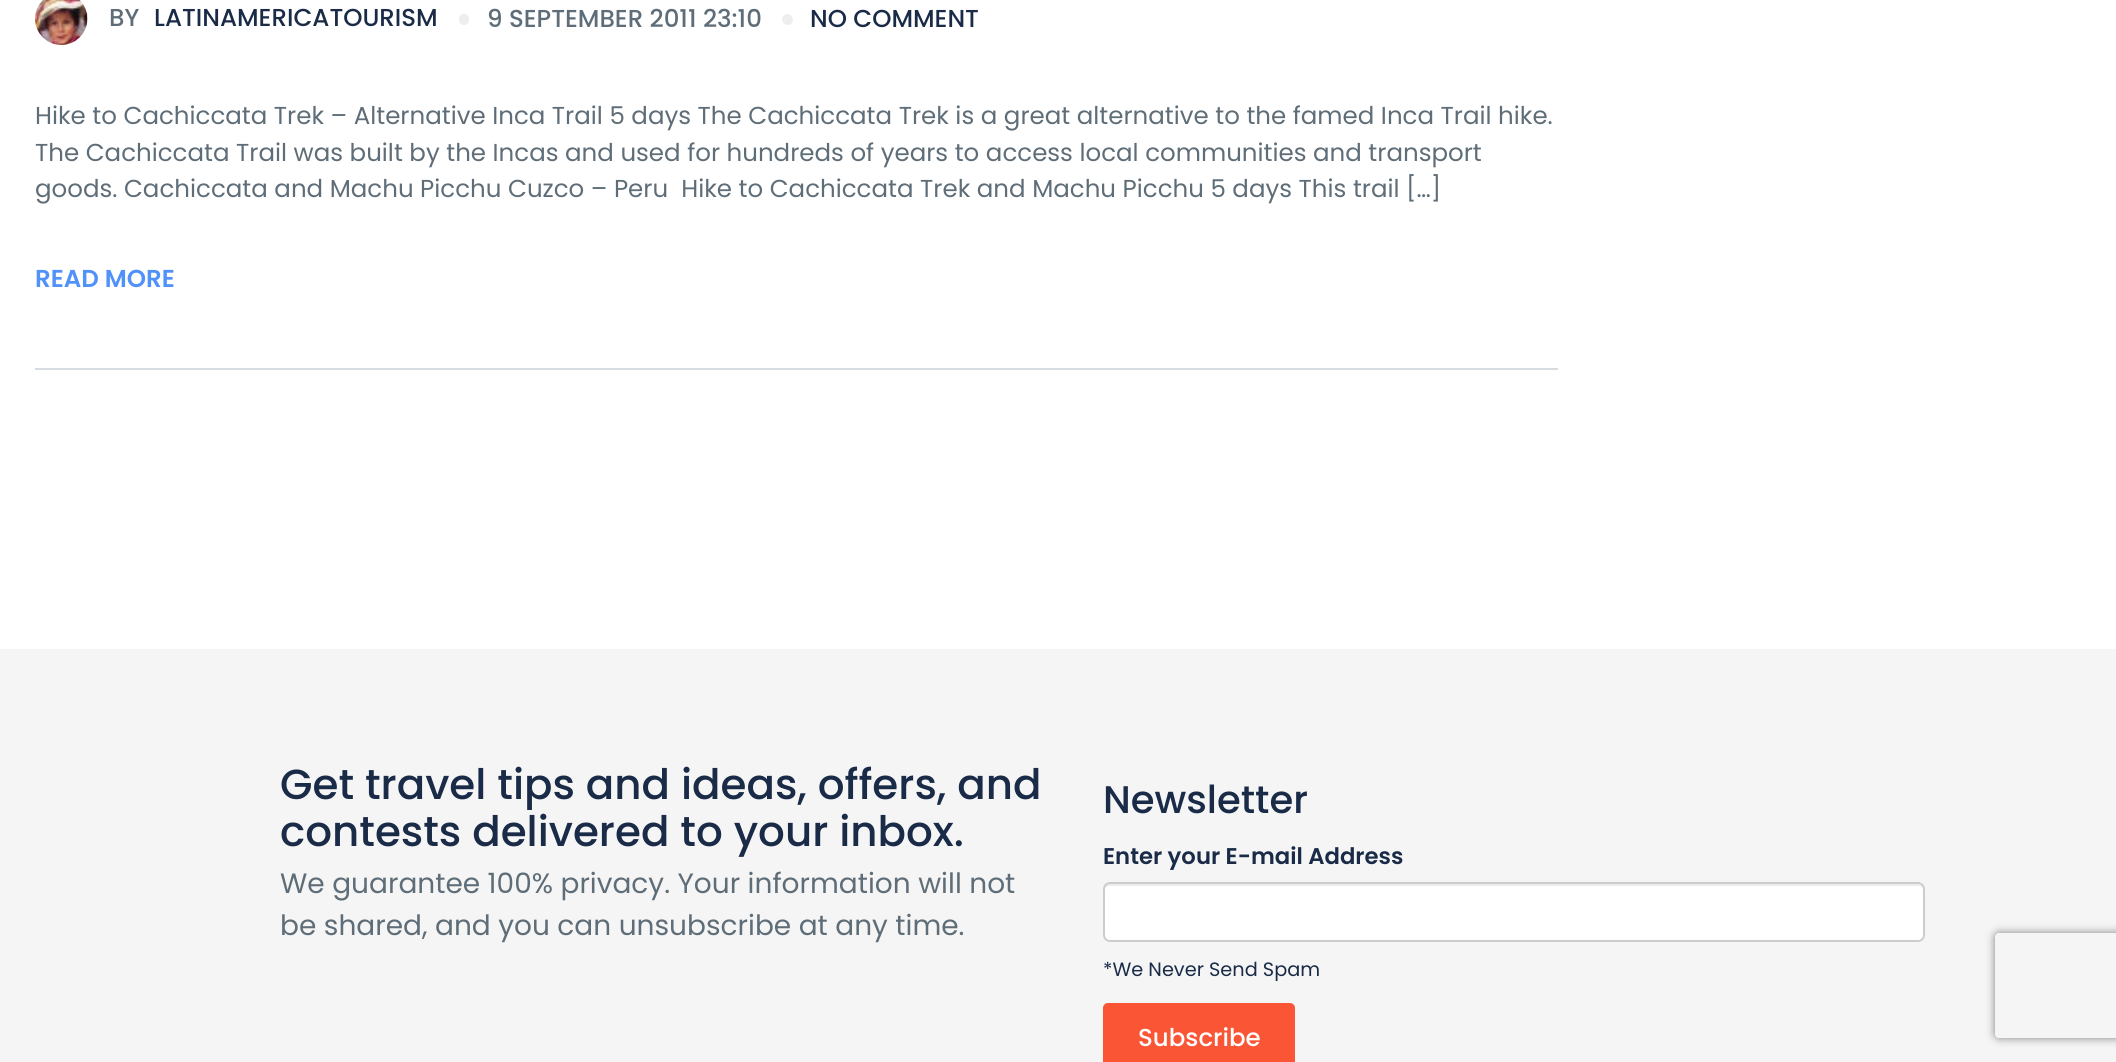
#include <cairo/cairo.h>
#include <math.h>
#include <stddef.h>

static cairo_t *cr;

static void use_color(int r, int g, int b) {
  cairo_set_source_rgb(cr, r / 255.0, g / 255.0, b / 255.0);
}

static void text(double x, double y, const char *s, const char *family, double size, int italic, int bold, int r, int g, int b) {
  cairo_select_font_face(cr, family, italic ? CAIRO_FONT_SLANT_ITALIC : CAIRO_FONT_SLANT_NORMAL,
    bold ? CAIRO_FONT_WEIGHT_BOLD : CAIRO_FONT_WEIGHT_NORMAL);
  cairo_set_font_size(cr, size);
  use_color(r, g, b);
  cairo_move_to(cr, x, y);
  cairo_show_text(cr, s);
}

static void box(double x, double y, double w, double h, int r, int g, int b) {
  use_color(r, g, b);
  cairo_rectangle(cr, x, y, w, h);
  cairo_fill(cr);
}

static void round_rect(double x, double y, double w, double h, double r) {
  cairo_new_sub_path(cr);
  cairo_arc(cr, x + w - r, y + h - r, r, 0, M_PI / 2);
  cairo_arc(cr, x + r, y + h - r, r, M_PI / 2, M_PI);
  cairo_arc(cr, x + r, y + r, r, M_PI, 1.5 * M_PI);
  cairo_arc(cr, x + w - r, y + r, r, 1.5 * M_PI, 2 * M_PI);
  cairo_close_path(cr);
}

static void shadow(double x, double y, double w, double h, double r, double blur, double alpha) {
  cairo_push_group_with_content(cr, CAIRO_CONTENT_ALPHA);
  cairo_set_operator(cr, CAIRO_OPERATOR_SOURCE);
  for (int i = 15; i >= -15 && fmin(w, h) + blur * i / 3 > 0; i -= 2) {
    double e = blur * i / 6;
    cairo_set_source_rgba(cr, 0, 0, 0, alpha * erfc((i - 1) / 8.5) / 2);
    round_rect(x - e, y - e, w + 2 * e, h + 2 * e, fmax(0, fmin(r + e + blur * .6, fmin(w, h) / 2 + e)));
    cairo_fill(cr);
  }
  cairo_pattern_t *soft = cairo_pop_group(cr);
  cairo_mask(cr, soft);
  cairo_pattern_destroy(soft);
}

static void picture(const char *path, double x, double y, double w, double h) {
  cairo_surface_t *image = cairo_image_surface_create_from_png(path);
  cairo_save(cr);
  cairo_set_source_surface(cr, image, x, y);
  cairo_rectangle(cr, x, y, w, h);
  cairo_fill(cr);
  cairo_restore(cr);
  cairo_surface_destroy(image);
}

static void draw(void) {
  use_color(255, 255, 255);
  cairo_paint(cr);
  box(35, 368, 1523, 2, 215, 220, 227);
  picture("img_01.png", 35, 0, 53, 45);
  use_color(238, 238, 238);
  round_rect(459, 14, 10, 11, 5);
  cairo_fill(cr);
  cairo_arc(cr, 787.5, 19.5, 5.5, 0, 2 * M_PI);
  cairo_fill(cr);
  box(0, 649, 2116, 413, 245, 245, 245);
  use_color(255, 255, 255);
  round_rect(1103, 882, 822, 60, 7);
  cairo_fill(cr);
  use_color(236, 236, 236);
  cairo_new_path(cr);
  cairo_move_to(cr, 1110, 886);
  cairo_line_to(cr, 1918, 886);
  cairo_curve_to(cr, 1921, 886, 1923, 888, 1923, 891);
  cairo_line_to(cr, 1923, 889);
  cairo_curve_to(cr, 1923, 886, 1921, 884, 1918, 884);
  cairo_line_to(cr, 1109, 884);
  cairo_curve_to(cr, 1106, 884, 1104, 886, 1104, 889);
  cairo_line_to(cr, 1104, 891);
  cairo_curve_to(cr, 1104, 888, 1107, 886, 1110, 886);
  cairo_close_path(cr);
  cairo_fill(cr);
  round_rect(1104, 883, 820, 58, 6);
  use_color(204, 204, 204);
  cairo_stroke(cr);
  use_color(250, 86, 54);
  round_rect(1103, 1003, 192, 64, 5);
  cairo_fill(cr);
  cairo_save(cr);
  cairo_set_fill_rule(cr, CAIRO_FILL_RULE_EVEN_ODD);
  cairo_new_path(cr);
  cairo_move_to(cr, 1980, 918);
  cairo_line_to(cr, 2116, 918);
  cairo_line_to(cr, 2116, 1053);
  cairo_line_to(cr, 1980, 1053);
  cairo_close_path(cr);
  cairo_move_to(cr, 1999, 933);
  cairo_line_to(cr, 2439, 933);
  cairo_curve_to(cr, 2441, 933, 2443, 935, 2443, 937);
  cairo_line_to(cr, 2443, 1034);
  cairo_curve_to(cr, 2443, 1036, 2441, 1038, 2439, 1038);
  cairo_line_to(cr, 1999, 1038);
  cairo_curve_to(cr, 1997, 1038, 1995, 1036, 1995, 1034);
  cairo_line_to(cr, 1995, 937);
  cairo_curve_to(cr, 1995, 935, 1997, 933, 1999, 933);
  cairo_close_path(cr);
  cairo_clip(cr);
  use_color(128, 128, 128);
  shadow(1995, 933, 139, 105, 4, 4.5, 1);
  cairo_restore(cr);
  text(109, 26, "BY", "Poppins Medium", 24.5, 0, 0, 94, 109, 119);
  text(154, 26, "LATINAMERICATOURISM", "Poppins Medium", 24.5, 0, 0, 26, 43, 72);
  text(487, 27, "9 SEPTEMBER 2011 23:10", "Poppins Medium", 24.5, 0, 0, 94, 109, 119);
  text(810, 27, "NO COMMENT", "Poppins Medium", 24.5, 0, 0, 26, 43, 72);
  text(35, 124, "Hike to Cachiccata Trek – Alternative Inca Trail 5 days The Cachiccata Trek is a great alternative to the famed Inca Trail hike.", "Poppins", 24.5, 0, 0, 94, 109, 119);
  text(35, 161, "The Cachiccata Trail was built by the Incas and used for hundreds of years to access local communities and transport", "Poppins", 24.5, 0, 0, 94, 109, 119);
  text(35, 197, "goods. Cachiccata and Machu Picchu Cuzco – Peru  Hike to Cachiccata Trek and Machu Picchu 5 days This trail […]", "Poppins", 24.5, 0, 0, 94, 109, 119);
  text(35, 287, "READ MORE", "Poppins SemiBold", 24.5, 0, 0, 81, 145, 250);
  text(280, 799, "Get travel tips and ideas, offers, and", "Poppins Medium", 42, 0, 0, 26, 43, 72);
  text(280, 846, "contests delivered to your inbox.", "Poppins Medium", 42, 0, 0, 26, 43, 72);
  text(280, 893, "We guarantee 100% privacy. Your information will not", "Poppins", 28, 0, 0, 94, 109, 119);
  text(280, 935, "be shared, and you can unsubscribe at any time.", "Poppins", 28, 0, 0, 94, 109, 119);
  text(1103, 813, "Newsletter", "Poppins Medium", 38.5, 0, 0, 26, 43, 72);
  text(1103, 864, "Enter your E-mail Address", "Poppins SemiBold", 22.75, 0, 0, 26, 43, 72);
  text(1103, 976, "*We Never Send Spam", "Poppins", 19.3, 0, 0, 26, 43, 72);
  text(1138, 1046, "Subscribe", "Poppins Medium", 24.5, 0, 0, 255, 255, 255);
}

int main(void) {
  cairo_surface_t *surface = cairo_image_surface_create(CAIRO_FORMAT_RGB24, 2116, 1062);
  cr = cairo_create(surface);
  cairo_font_options_t *options = cairo_font_options_create();
  cairo_font_options_set_hint_metrics(options, CAIRO_HINT_METRICS_OFF);
  cairo_font_options_set_hint_style(options, CAIRO_HINT_STYLE_NONE);
  cairo_set_font_options(cr, options);
  cairo_set_miter_limit(cr, 4);
  draw();
  cairo_surface_write_to_png(surface, "out.png");
  cairo_font_options_destroy(options);
  cairo_destroy(cr);
  cairo_surface_destroy(surface);
  return 0;
}
